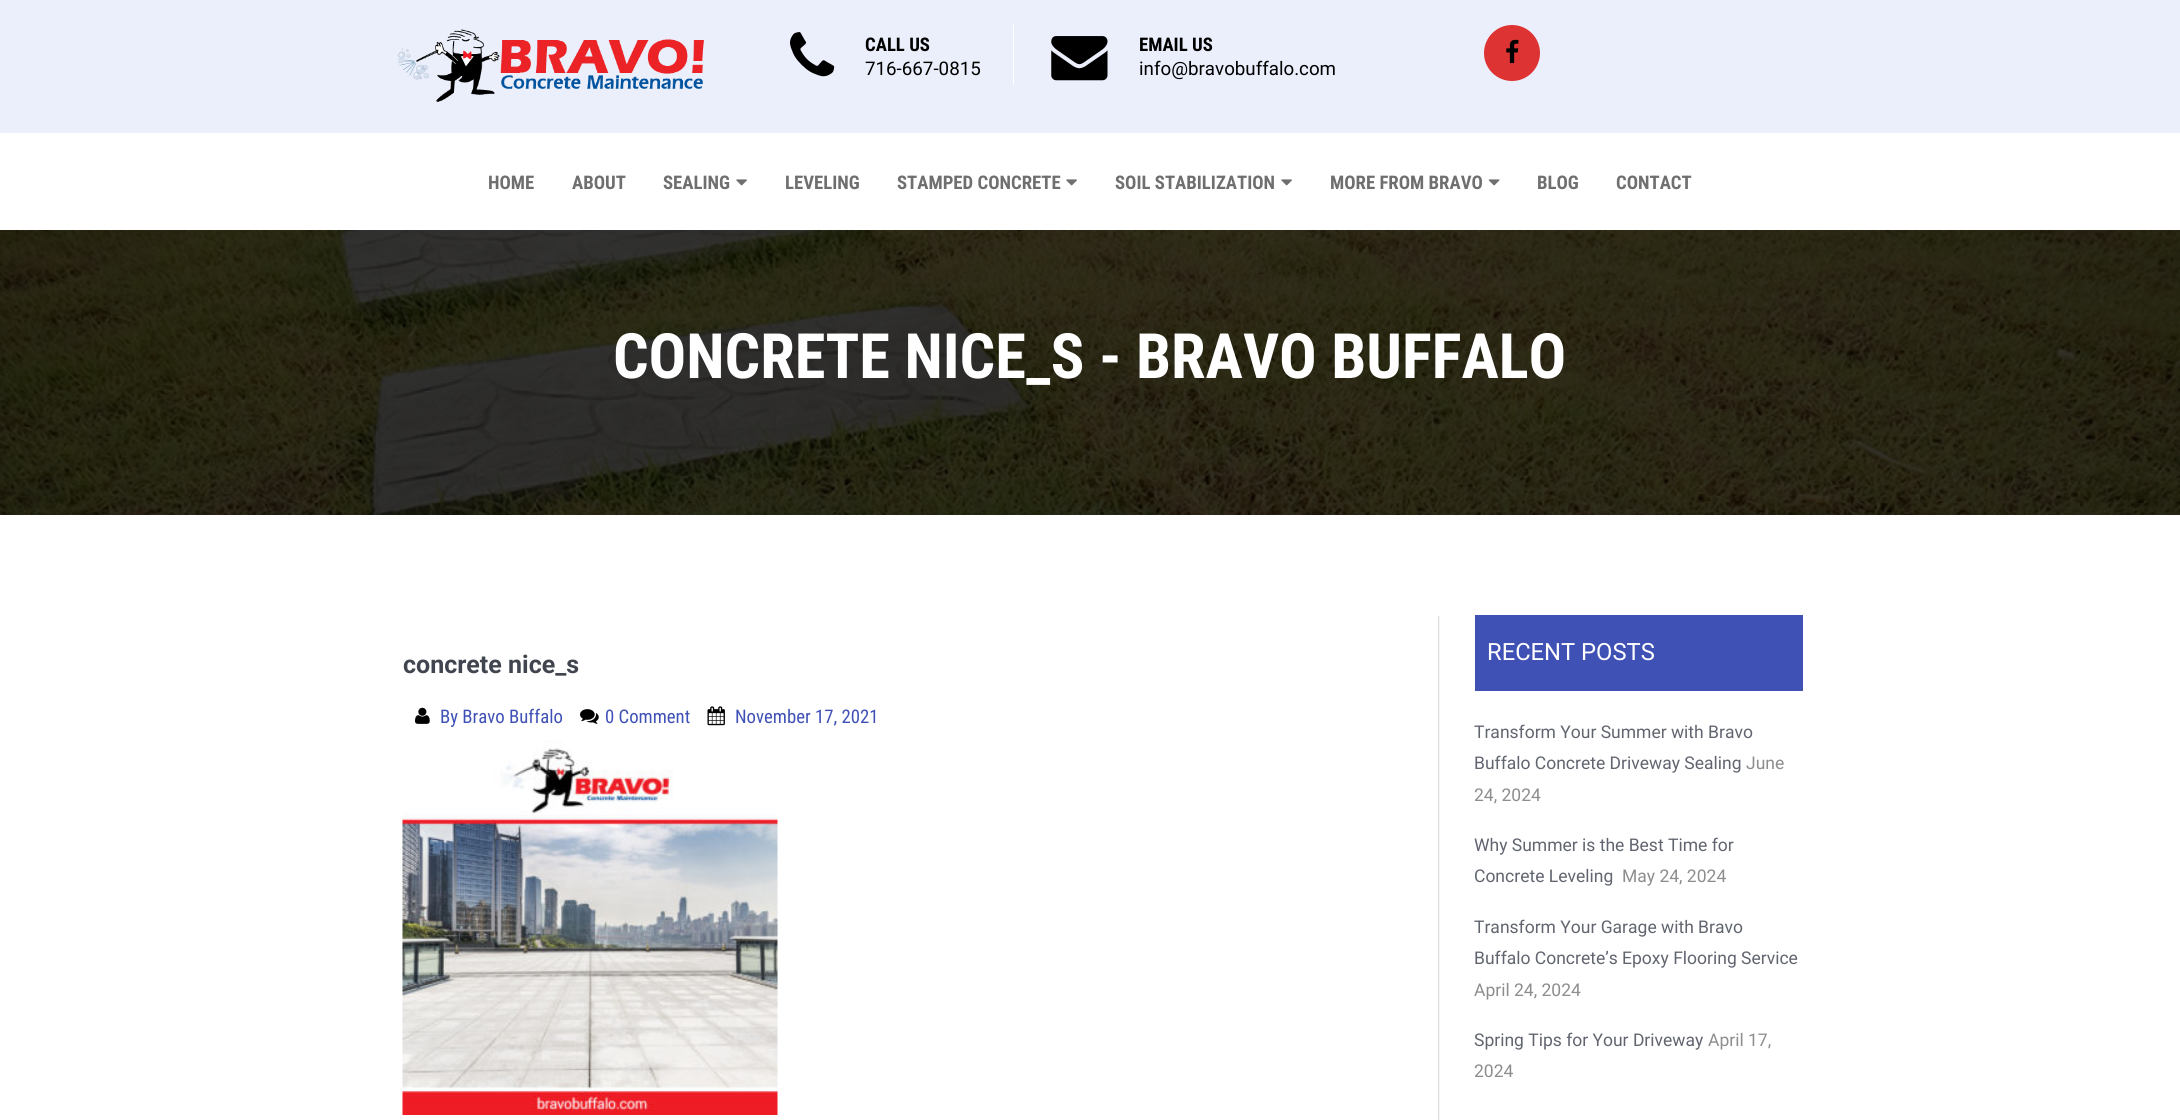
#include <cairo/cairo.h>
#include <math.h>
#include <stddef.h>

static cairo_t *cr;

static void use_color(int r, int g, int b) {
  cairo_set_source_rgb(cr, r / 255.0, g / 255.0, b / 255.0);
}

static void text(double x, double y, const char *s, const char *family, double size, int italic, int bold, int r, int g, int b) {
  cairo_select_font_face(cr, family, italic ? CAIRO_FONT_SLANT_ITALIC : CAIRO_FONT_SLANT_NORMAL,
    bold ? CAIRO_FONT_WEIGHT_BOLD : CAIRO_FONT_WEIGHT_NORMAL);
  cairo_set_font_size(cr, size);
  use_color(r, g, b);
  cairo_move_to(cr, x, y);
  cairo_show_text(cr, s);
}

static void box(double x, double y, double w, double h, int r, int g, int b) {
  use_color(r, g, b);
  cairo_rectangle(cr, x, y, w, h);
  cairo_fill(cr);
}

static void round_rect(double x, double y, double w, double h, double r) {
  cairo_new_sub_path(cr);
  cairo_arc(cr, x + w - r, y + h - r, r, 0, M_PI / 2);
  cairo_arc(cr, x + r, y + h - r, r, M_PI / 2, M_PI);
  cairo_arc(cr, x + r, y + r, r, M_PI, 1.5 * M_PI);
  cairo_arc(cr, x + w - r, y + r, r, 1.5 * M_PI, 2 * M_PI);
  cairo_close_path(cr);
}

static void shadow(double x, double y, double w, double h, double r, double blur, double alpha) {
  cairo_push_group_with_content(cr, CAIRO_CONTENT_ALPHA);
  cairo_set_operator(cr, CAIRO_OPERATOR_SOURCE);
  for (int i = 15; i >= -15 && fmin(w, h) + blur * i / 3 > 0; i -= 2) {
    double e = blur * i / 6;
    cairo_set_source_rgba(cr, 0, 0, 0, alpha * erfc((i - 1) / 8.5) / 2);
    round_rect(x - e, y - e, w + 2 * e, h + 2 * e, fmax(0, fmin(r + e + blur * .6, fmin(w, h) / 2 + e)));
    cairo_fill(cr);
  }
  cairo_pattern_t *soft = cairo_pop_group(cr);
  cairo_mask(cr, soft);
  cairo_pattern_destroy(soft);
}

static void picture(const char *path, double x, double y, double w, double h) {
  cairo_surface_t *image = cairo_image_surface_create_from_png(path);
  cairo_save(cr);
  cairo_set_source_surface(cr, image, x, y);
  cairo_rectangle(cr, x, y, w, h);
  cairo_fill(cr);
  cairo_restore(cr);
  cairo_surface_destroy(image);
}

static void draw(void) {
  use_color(255, 255, 255);
  cairo_paint(cr);
  box(0, 0, 2180, 133, 235, 239, 251);
  picture("img_01.png", 398, 29, 307, 73);
  picture("img_02.png", 790, 32, 45, 45);
  box(1013, 25, 1, 60, 255, 255, 255);
  picture("img_03.png", 1051, 36, 57, 45);
  use_color(221, 51, 51);
  cairo_arc(cr, 1512, 53, 28, 0, 2 * M_PI);
  cairo_fill(cr);
  picture("img_04.png", 1506, 39, 13, 25);
  picture("img_05.png", 736, 179, 11, 7);
  picture("img_05.png", 1066, 179, 11, 7);
  picture("img_05.png", 1281, 179, 11, 7);
  picture("img_06.png", 1488, 179, 12, 7);
  picture("img_07.png", 0, 230, 2180, 285);
  use_color(0, 0, 0);
  shadow(379, 616, 1060, 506, 0, 0.5, 0.15);
  box(378, 615, 1060, 505, 255, 255, 255);
  picture("img_08.png", 415, 707, 15, 17);
  picture("img_09.png", 580, 709, 19, 15);
  picture("img_10.png", 707, 706, 18, 20);
  picture("img_11.png", 402, 740, 376, 375);
  box(1475, 615, 328, 76, 63, 81, 181);
  text(865, 51, "CALL US", "Roboto Condensed", 18.75, 0, 1, 0, 0, 0);
  text(865, 75, "716-667-0815", "Roboto", 18.75, 0, 0, 0, 0, 0);
  text(1139, 51, "EMAIL US", "Roboto Condensed", 18.75, 0, 1, 0, 0, 0);
  text(1139, 75, "info@bravobuffalo.com", "Roboto", 18.75, 0, 0, 0, 0, 0);
  text(488, 189, "HOME", "Roboto Condensed", 18.75, 0, 1, 111, 111, 111);
  text(572, 189, "ABOUT", "Roboto Condensed", 18.75, 0, 1, 111, 111, 111);
  text(663, 189, "SEALING", "Roboto Condensed", 18.75, 0, 1, 111, 111, 111);
  text(785, 189, "LEVELING", "Roboto Condensed", 18.75, 0, 1, 111, 111, 111);
  text(897, 189, "STAMPED CONCRETE", "Roboto Condensed", 18.75, 0, 1, 111, 111, 111);
  text(1115, 189, "SOIL STABILIZATION", "Roboto Condensed", 18.75, 0, 1, 111, 111, 111);
  text(1330, 189, "MORE FROM BRAVO", "Roboto Condensed", 18.75, 0, 1, 111, 111, 111);
  text(1537, 189, "BLOG", "Roboto Condensed", 18.75, 0, 1, 111, 111, 111);
  text(1616, 189, "CONTACT", "Roboto Condensed", 18.75, 0, 1, 111, 111, 111);
  text(613, 378, "CONCRETE NICE_S - BRAVO BUFFALO", "Roboto Condensed", 62.5, 0, 1, 255, 255, 255);
  text(403, 673, "concrete nice_s", "Roboto", 25, 0, 1, 65, 69, 79);
  text(440, 723, "By Bravo Buffalo", "Roboto Condensed", 18.75, 0, 0, 63, 81, 181);
  text(605, 723, "0 Comment", "Roboto Condensed", 18.75, 0, 0, 63, 81, 181);
  text(735, 723, "November 17, 2021", "Roboto Condensed", 18.75, 0, 0, 63, 81, 181);
  text(1487, 660, "RECENT POSTS", "Roboto", 23.75, 0, 0, 255, 255, 255);
  text(1474, 738, "Transform Your Summer with Bravo", "Roboto", 17.5, 0, 0, 97, 101, 111);
  text(1474, 769, "Buffalo Concrete Driveway Sealing", "Roboto", 17.5, 0, 0, 97, 101, 111);
  text(1746, 769, "June", "Roboto", 17.5, 0, 0, 141, 141, 141);
  text(1474, 801, "24, 2024", "Roboto", 17.5, 0, 0, 141, 141, 141);
  text(1474, 851, "Why Summer is the Best Time for", "Roboto", 17.5, 0, 0, 97, 101, 111);
  text(1474, 882, "Concrete Leveling", "Roboto", 17.5, 0, 0, 97, 101, 111);
  text(1622, 882, "May 24, 2024", "Roboto", 17.5, 0, 0, 141, 141, 141);
  text(1474, 933, "Transform Your Garage with Bravo", "Roboto", 17.5, 0, 0, 97, 101, 111);
  text(1474, 964, "Buffalo Concrete’s Epoxy Flooring Service", "Roboto", 17.5, 0, 0, 97, 101, 111);
  text(1474, 996, "April 24, 2024", "Roboto", 17.5, 0, 0, 141, 141, 141);
  text(1474, 1046, "Spring Tips for Your Driveway", "Roboto", 17.5, 0, 0, 97, 101, 111);
  text(1708, 1046, "April 17,", "Roboto", 17.5, 0, 0, 141, 141, 141);
  text(1474, 1077, "2024", "Roboto", 17.5, 0, 0, 141, 141, 141);
}

int main(void) {
  cairo_surface_t *surface = cairo_image_surface_create(CAIRO_FORMAT_RGB24, 2180, 1120);
  cr = cairo_create(surface);
  cairo_font_options_t *options = cairo_font_options_create();
  cairo_font_options_set_hint_metrics(options, CAIRO_HINT_METRICS_OFF);
  cairo_font_options_set_hint_style(options, CAIRO_HINT_STYLE_NONE);
  cairo_set_font_options(cr, options);
  cairo_set_miter_limit(cr, 4);
  draw();
  cairo_surface_write_to_png(surface, "out.png");
  cairo_font_options_destroy(options);
  cairo_destroy(cr);
  cairo_surface_destroy(surface);
  return 0;
}
